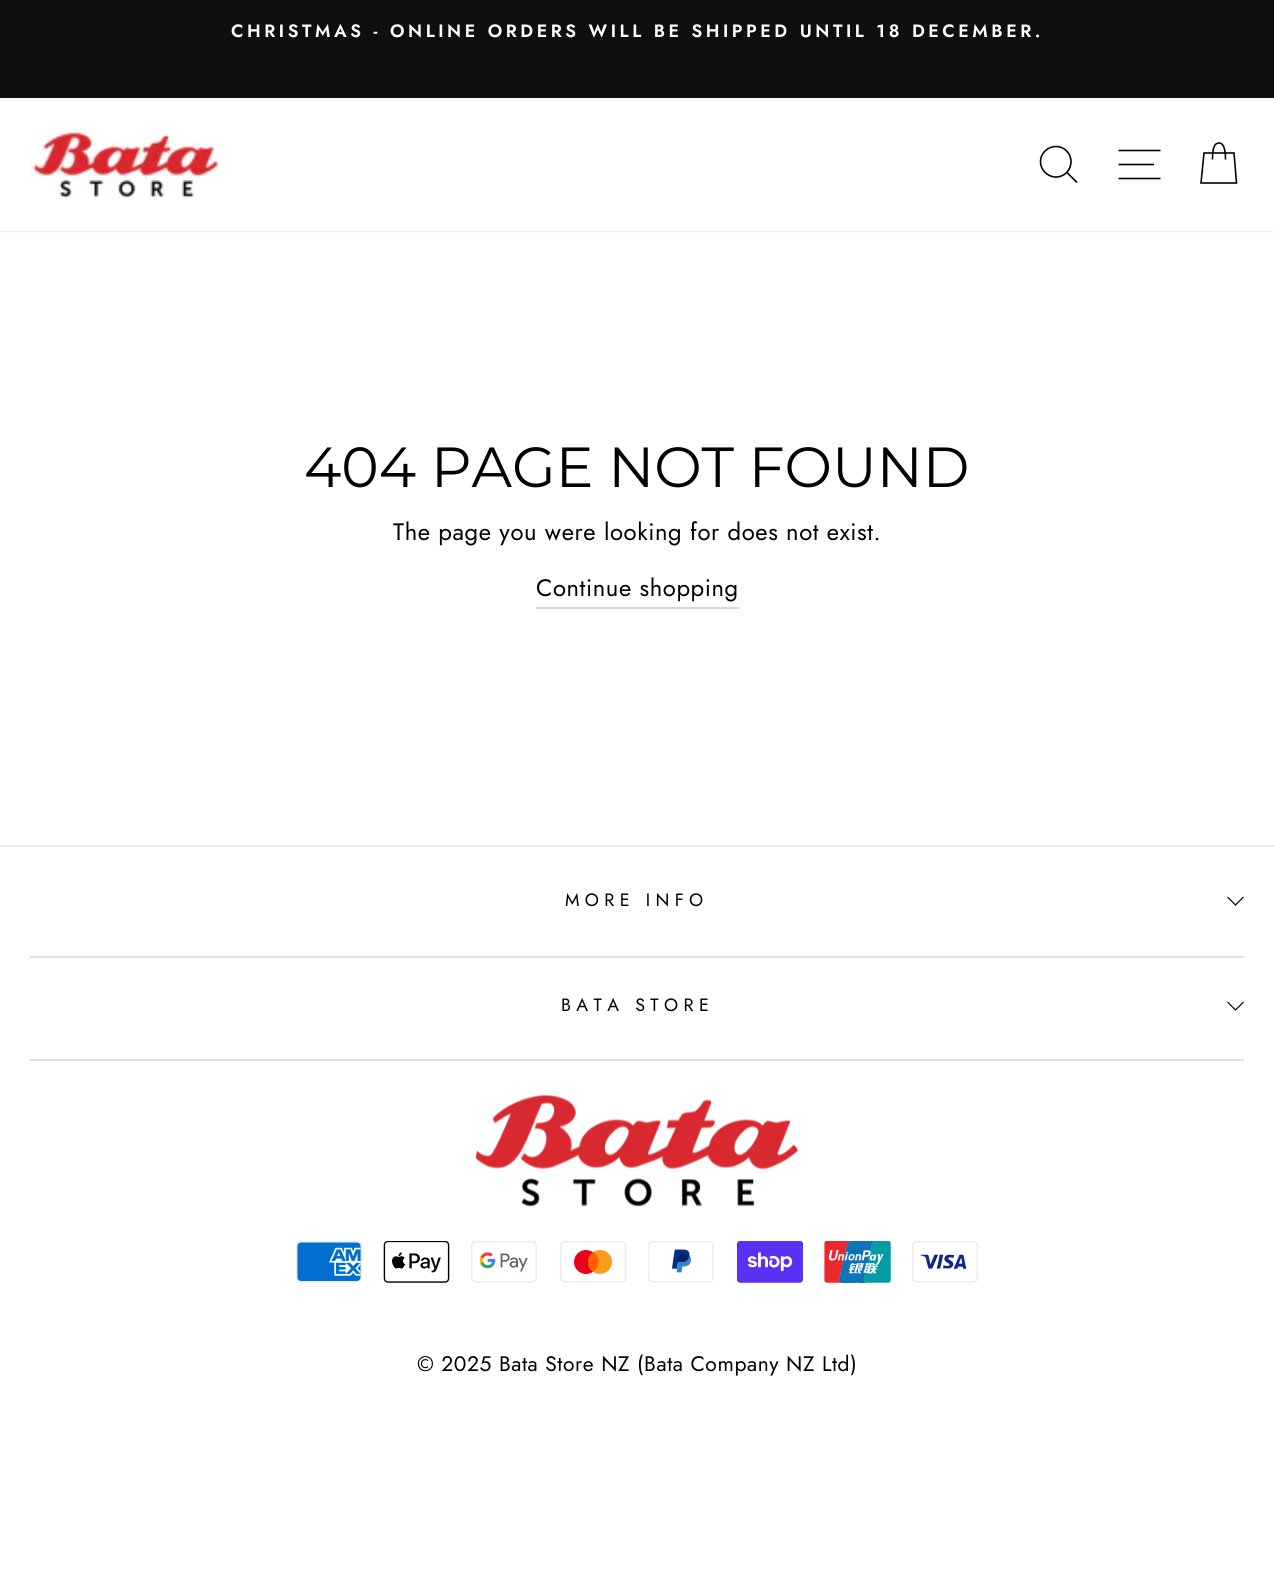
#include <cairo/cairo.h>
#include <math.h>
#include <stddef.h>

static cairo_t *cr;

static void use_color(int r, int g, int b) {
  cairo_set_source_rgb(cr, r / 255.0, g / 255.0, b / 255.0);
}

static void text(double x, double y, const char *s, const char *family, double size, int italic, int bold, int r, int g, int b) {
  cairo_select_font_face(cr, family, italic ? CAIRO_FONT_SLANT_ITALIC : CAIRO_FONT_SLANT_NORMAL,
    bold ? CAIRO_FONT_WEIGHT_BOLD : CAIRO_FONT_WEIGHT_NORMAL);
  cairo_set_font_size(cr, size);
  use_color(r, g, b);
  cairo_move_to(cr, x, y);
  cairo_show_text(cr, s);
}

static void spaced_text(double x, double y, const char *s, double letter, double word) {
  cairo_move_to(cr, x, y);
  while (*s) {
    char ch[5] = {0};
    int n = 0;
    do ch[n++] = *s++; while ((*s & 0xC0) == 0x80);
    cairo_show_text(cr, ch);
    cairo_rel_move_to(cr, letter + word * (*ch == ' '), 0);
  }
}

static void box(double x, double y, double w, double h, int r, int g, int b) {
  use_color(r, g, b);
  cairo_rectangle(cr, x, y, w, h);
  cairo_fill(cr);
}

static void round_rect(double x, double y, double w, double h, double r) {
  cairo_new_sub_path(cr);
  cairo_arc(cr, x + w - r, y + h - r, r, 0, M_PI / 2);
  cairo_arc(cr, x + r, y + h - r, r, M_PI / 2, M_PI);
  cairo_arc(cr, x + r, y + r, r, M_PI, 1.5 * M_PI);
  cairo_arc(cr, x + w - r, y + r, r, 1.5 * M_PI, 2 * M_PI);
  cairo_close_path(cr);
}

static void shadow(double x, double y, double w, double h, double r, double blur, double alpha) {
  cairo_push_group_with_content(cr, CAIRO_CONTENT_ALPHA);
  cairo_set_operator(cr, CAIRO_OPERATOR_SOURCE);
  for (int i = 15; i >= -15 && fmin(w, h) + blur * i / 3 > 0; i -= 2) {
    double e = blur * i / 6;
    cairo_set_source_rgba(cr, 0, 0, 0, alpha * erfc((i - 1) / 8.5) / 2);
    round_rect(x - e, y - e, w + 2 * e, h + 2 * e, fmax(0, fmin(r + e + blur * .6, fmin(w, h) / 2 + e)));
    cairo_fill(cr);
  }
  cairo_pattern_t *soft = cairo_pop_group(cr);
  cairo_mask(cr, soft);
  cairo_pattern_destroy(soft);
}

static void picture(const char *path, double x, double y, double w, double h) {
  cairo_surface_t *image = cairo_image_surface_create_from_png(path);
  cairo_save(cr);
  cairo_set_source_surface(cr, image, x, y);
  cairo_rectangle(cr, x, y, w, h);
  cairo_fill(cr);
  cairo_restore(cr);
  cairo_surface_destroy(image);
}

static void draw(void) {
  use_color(255, 255, 255);
  cairo_paint(cr);
  box(0, 0, 1274, 98, 15, 15, 15);
  cairo_save(cr);
  cairo_set_fill_rule(cr, CAIRO_FILL_RULE_EVEN_ODD);
  cairo_new_path(cr);
  cairo_move_to(cr, 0, 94);
  cairo_line_to(cr, 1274, 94);
  cairo_line_to(cr, 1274, 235);
  cairo_line_to(cr, 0, 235);
  cairo_close_path(cr);
  cairo_move_to(cr, 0, 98);
  cairo_line_to(cr, 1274, 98);
  cairo_line_to(cr, 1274, 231);
  cairo_line_to(cr, 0, 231);
  cairo_close_path(cr);
  cairo_clip(cr);
  use_color(0, 0, 0);
  shadow(0, 98, 1274, 133, 0, 1, 0.2);
  cairo_restore(cr);
  picture("img_01.png", 30, 128, 192, 71);
  cairo_new_path(cr);
  cairo_move_to(cr, 1071, 161.5);
  cairo_curve_to(cr, 1071, 170, 1064.5, 177, 1056, 177);
  cairo_curve_to(cr, 1047.5, 177, 1040.5, 170, 1040.5, 161.5);
  cairo_curve_to(cr, 1040.5, 153.5, 1047.5, 146.5, 1056, 146.5);
  cairo_curve_to(cr, 1064.5, 146.5, 1071, 153.5, 1071, 161.5);
  cairo_close_path(cr);
  cairo_move_to(cr, 1077, 182.5);
  cairo_line_to(cr, 1067, 172.5);
  use_color(0, 0, 0);
  cairo_set_line_width(cr, 1.6);
  cairo_stroke(cr);
  cairo_new_path(cr);
  cairo_move_to(cr, 1118.5, 150.5);
  cairo_line_to(cr, 1160.5, 150.5);
  cairo_move_to(cr, 1118.5, 164.5);
  cairo_line_to(cr, 1154, 164.5);
  cairo_move_to(cr, 1118.5, 178.5);
  cairo_line_to(cr, 1160.5, 178.5);
  cairo_stroke(cr);
  cairo_new_path(cr);
  cairo_move_to(cr, 1212.5, 159.5);
  cairo_curve_to(cr, 1212.5, 146.5, 1215, 143, 1219, 143);
  cairo_curve_to(cr, 1222.5, 143, 1225.5, 146.5, 1225.5, 159.5);
  cairo_move_to(cr, 1204, 153);
  cairo_line_to(cr, 1234, 153);
  cairo_line_to(cr, 1236.5, 183);
  cairo_line_to(cr, 1201, 183);
  cairo_close_path(cr);
  cairo_stroke(cr);
  box(536, 607, 203, 2, 217, 217, 217);
  box(0, 845, 1274, 2, 232, 232, 225);
  cairo_new_path(cr);
  cairo_move_to(cr, 1227.5, 897);
  cairo_line_to(cr, 1235.5, 905);
  cairo_line_to(cr, 1243.5, 897);
  use_color(0, 0, 0);
  cairo_set_line_width(cr, 1.2);
  cairo_stroke(cr);
  box(30, 956, 1214, 2, 224, 224, 224);
  cairo_new_path(cr);
  cairo_move_to(cr, 1227.5, 1002);
  cairo_line_to(cr, 1235.5, 1010);
  cairo_line_to(cr, 1243.5, 1002);
  use_color(0, 0, 0);
  cairo_stroke(cr);
  box(30, 1059, 1214, 2, 224, 224, 224);
  picture("img_02.png", 476, 1095, 322, 112);
  picture("img_03.png", 296, 1241, 66, 42);
  picture("img_04.png", 383, 1241, 67, 42);
  picture("img_05.png", 471, 1241, 66, 42);
  picture("img_06.png", 560, 1241, 67, 42);
  picture("img_07.png", 648, 1241, 66, 42);
  picture("img_08.png", 737, 1241, 66, 42);
  picture("img_09.png", 824, 1241, 67, 42);
  picture("img_10.png", 912, 1241, 66, 42);
  cairo_select_font_face(cr, "Jost SemiBold", CAIRO_FONT_SLANT_NORMAL, CAIRO_FONT_WEIGHT_NORMAL);
  cairo_set_font_size(cr, 17.85);
  use_color(255, 255, 255);
  spaced_text(231, 37, "CHRISTMAS - ONLINE ORDERS WILL BE SHIPPED UNTIL 18 DECEMBER.", 3.57, 0);
  text(304, 487, "404 PAGE NOT FOUND", "Montserrat", 56.5, 0, 0, 0, 0, 0);
  cairo_select_font_face(cr, "Jost", CAIRO_FONT_SLANT_NORMAL, CAIRO_FONT_WEIGHT_NORMAL);
  cairo_set_font_size(cr, 23.8);
  spaced_text(393, 540, "The page you were looking for does not exist.", 0.6, 0);
  spaced_text(536, 596, "Continue shopping", 0.6, 0);
  cairo_set_font_size(cr, 17.85);
  spaced_text(565, 906, "MORE INFO", 5.4, 0);
  spaced_text(561, 1011, "BATA STORE", 5.4, 0);
  cairo_set_font_size(cr, 21);
  spaced_text(417, 1371, "© 2025 Bata Store NZ (Bata Company NZ Ltd)", 0.6, 0);
}

int main(void) {
  cairo_surface_t *surface = cairo_image_surface_create(CAIRO_FORMAT_RGB24, 1274, 1571);
  cr = cairo_create(surface);
  cairo_font_options_t *options = cairo_font_options_create();
  cairo_font_options_set_hint_metrics(options, CAIRO_HINT_METRICS_OFF);
  cairo_font_options_set_hint_style(options, CAIRO_HINT_STYLE_NONE);
  cairo_set_font_options(cr, options);
  cairo_set_miter_limit(cr, 4);
  draw();
  cairo_surface_write_to_png(surface, "out.png");
  cairo_font_options_destroy(options);
  cairo_destroy(cr);
  cairo_surface_destroy(surface);
  return 0;
}
